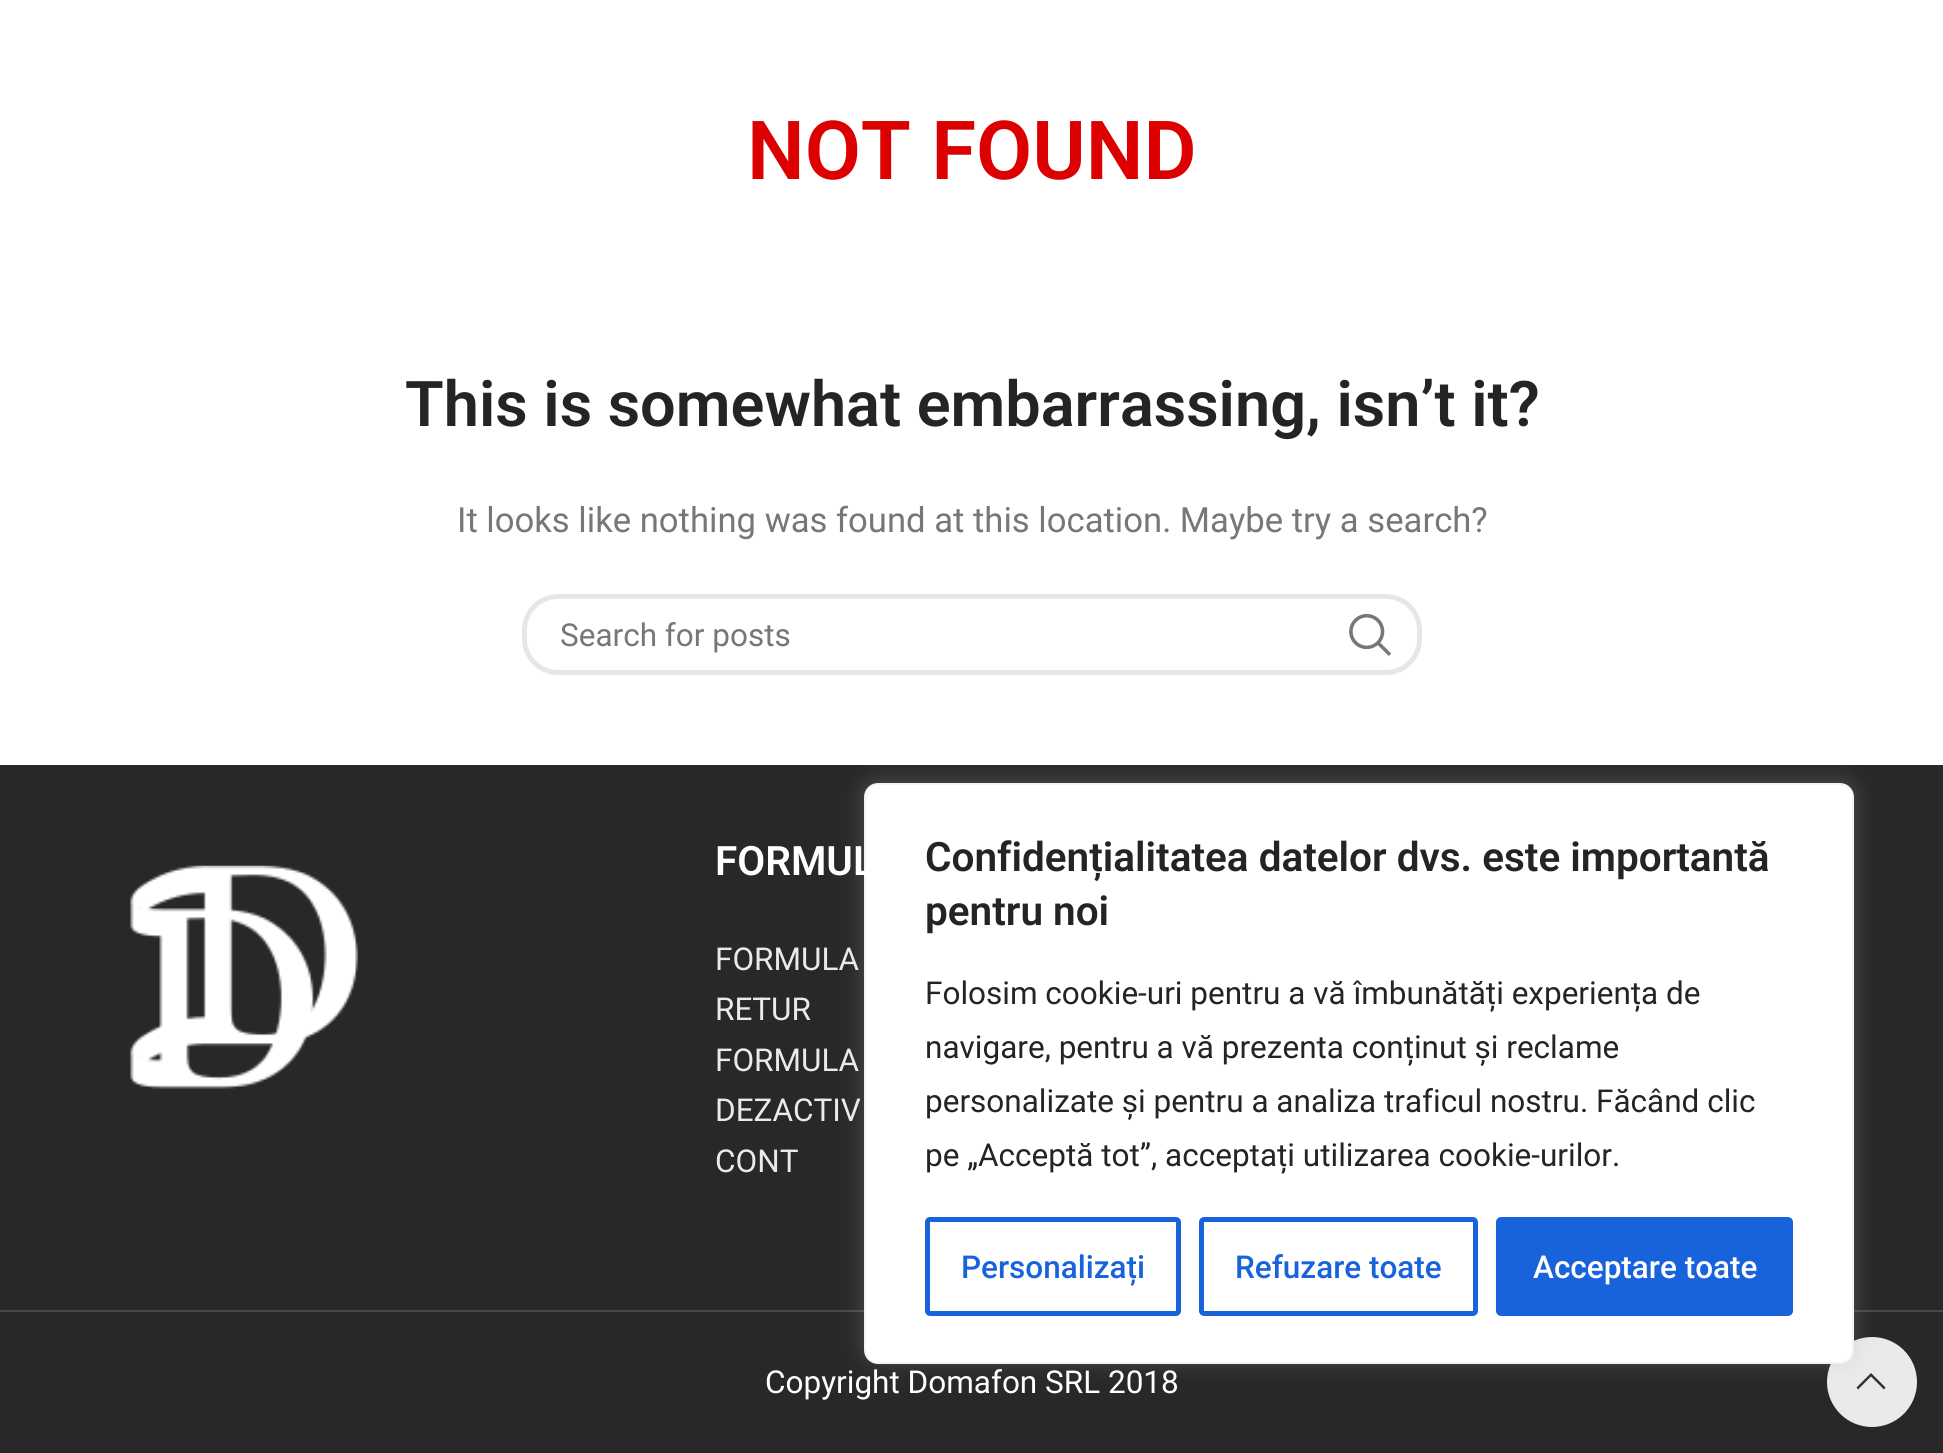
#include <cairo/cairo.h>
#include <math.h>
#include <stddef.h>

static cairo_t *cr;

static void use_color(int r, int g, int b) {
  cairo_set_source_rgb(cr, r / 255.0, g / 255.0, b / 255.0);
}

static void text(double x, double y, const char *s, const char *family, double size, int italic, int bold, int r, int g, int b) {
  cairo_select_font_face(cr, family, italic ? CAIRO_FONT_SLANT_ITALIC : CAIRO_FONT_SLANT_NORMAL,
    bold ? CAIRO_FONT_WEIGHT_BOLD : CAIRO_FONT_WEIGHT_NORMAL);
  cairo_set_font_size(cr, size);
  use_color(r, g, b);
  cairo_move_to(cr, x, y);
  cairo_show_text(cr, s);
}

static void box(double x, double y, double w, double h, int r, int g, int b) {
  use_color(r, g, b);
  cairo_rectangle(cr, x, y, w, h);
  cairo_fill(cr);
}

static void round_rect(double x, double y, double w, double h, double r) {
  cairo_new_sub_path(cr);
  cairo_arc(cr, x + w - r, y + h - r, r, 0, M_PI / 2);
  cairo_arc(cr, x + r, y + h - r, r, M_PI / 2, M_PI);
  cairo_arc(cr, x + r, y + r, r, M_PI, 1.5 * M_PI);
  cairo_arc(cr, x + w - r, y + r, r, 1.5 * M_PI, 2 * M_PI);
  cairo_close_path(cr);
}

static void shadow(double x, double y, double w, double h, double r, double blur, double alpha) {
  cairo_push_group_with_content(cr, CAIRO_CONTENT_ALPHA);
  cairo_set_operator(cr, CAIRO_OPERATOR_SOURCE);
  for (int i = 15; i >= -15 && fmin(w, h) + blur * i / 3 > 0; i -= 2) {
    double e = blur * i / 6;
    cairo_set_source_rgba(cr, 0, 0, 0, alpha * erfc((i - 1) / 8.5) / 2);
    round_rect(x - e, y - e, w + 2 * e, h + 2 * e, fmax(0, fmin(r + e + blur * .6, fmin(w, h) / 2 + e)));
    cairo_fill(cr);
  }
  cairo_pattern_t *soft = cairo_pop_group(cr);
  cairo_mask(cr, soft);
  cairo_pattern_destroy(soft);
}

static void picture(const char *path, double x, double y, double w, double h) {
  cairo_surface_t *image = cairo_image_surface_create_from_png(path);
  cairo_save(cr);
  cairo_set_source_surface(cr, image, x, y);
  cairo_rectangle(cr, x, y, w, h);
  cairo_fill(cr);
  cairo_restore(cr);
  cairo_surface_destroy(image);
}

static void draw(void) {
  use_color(255, 255, 255);
  cairo_paint(cr);
  round_rect(524.5, 596.5, 895, 76, 33.5);
  use_color(230, 230, 230);
  cairo_set_line_width(cr, 5);
  cairo_stroke(cr);
  picture("img_01.png", 1349, 614, 42, 42);
  box(0, 765, 1943, 688, 40, 40, 40);
  picture("img_02.png", 130, 865, 228, 224);
  box(0, 1310, 1943, 2, 72, 72, 72);
  cairo_set_source_rgba(cr, 1, 1, 1, 0.9);
  cairo_arc(cr, 1872, 1382, 45, 0, 2 * M_PI);
  cairo_fill(cr);
  use_color(51, 51, 51);
  cairo_new_path(cr);
  cairo_move_to(cr, 1884, 1389.5);
  cairo_line_to(cr, 1885.5, 1387.5);
  cairo_line_to(cr, 1871, 1373);
  cairo_line_to(cr, 1856.5, 1387.5);
  cairo_line_to(cr, 1858, 1389.5);
  cairo_line_to(cr, 1871, 1376.5);
  cairo_close_path(cr);
  cairo_fill(cr);
  use_color(172, 171, 171);
  shadow(864, 781, 990, 580, 14, 11, 0.3);
  use_color(255, 255, 255);
  round_rect(865, 784, 988, 579, 13);
  cairo_fill_preserve(cr);
  use_color(244, 244, 244);
  cairo_set_line_width(cr, 2);
  cairo_stroke(cr);
  round_rect(927.5, 1219.5, 251, 94, 2.5);
  use_color(24, 99, 220);
  cairo_set_line_width(cr, 5);
  cairo_stroke(cr);
  round_rect(1201.5, 1219.5, 274, 94, 2.5);
  cairo_stroke(cr);
  round_rect(1498.5, 1219.5, 292, 94, 2.5);
  cairo_fill_preserve(cr);
  cairo_stroke(cr);
  text(747, 179, "NOT FOUND", "Roboto SemiBold", 81.5, 0, 0, 220, 0, 0);
  text(405, 426, "This is somewhat embarrassing, isn’t it?", "Roboto SemiBold", 63, 0, 0, 36, 36, 36);
  text(457, 532, "It looks like nothing was found at this location. Maybe try a search?", "Roboto", 34.65, 0, 0, 119, 119, 119);
  text(560, 646, "Search for posts", "Roboto", 31.5, 0, 0, 119, 119, 119);
  text(715, 875, "FORMUL", "Roboto SemiBold", 40.5, 0, 0, 255, 255, 255);
  text(715, 970, "FORMULA", "Roboto", 31.5, 0, 0, 234, 234, 234);
  text(715, 1020, "RETUR", "Roboto", 31.5, 0, 0, 234, 234, 234);
  text(715, 1071, "FORMULA", "Roboto", 31.5, 0, 0, 234, 234, 234);
  text(715, 1121, "DEZACTIV", "Roboto", 31.5, 0, 0, 234, 234, 234);
  text(715, 1172, "CONT", "Roboto", 31.5, 0, 0, 234, 234, 234);
  text(765, 1393, "Copyright Domafon SRL 2018", "Roboto", 31.5, 0, 0, 255, 255, 255);
  text(925, 871, "Confidențialitatea datelor dvs. este importantă", "Roboto SemiBold", 40.5, 0, 0, 36, 36, 36);
  text(925, 925, "pentru noi", "Roboto SemiBold", 40.5, 0, 0, 36, 36, 36);
  text(925, 1004, "Folosim cookie-uri pentru a vă îmbunătăți experiența de", "Roboto", 31.5, 0, 0, 36, 36, 36);
  text(925, 1058, "navigare, pentru a vă prezenta conținut și reclame", "Roboto", 31.5, 0, 0, 36, 36, 36);
  text(925, 1112, "personalizate și pentru a analiza traficul nostru. Făcând clic", "Roboto", 31.5, 0, 0, 36, 36, 36);
  text(925, 1166, "pe „Acceptă tot”, acceptați utilizarea cookie-urilor.", "Roboto", 31.5, 0, 0, 36, 36, 36);
  text(961, 1278, "Personalizați", "Roboto Medium", 31.5, 0, 0, 24, 99, 220);
  text(1235, 1278, "Refuzare toate", "Roboto Medium", 31.5, 0, 0, 24, 99, 220);
  text(1533, 1278, "Acceptare toate", "Roboto Medium", 31.5, 0, 0, 255, 255, 255);
}

int main(void) {
  cairo_surface_t *surface = cairo_image_surface_create(CAIRO_FORMAT_RGB24, 1943, 1453);
  cr = cairo_create(surface);
  cairo_font_options_t *options = cairo_font_options_create();
  cairo_font_options_set_hint_metrics(options, CAIRO_HINT_METRICS_OFF);
  cairo_font_options_set_hint_style(options, CAIRO_HINT_STYLE_NONE);
  cairo_set_font_options(cr, options);
  cairo_set_miter_limit(cr, 4);
  draw();
  cairo_surface_write_to_png(surface, "out.png");
  cairo_font_options_destroy(options);
  cairo_destroy(cr);
  cairo_surface_destroy(surface);
  return 0;
}
